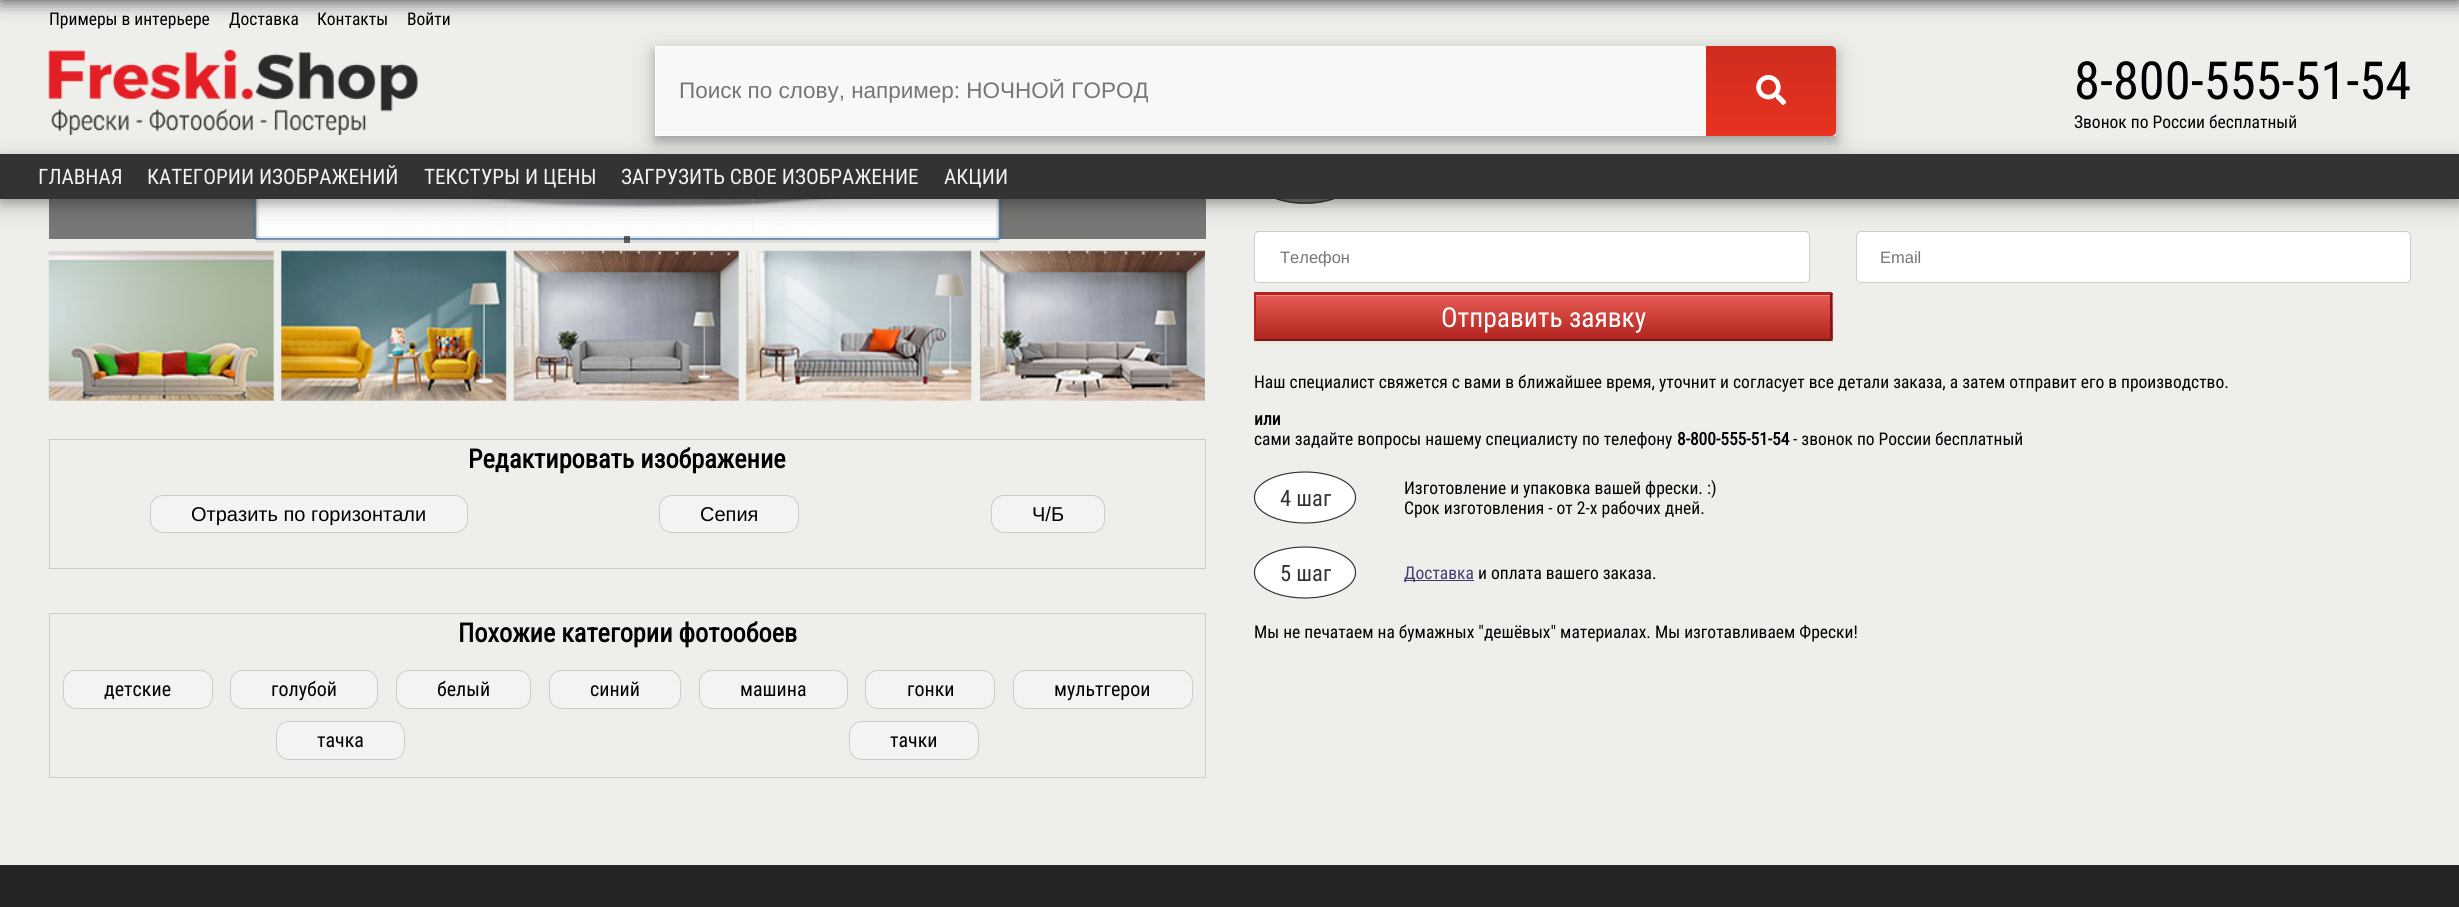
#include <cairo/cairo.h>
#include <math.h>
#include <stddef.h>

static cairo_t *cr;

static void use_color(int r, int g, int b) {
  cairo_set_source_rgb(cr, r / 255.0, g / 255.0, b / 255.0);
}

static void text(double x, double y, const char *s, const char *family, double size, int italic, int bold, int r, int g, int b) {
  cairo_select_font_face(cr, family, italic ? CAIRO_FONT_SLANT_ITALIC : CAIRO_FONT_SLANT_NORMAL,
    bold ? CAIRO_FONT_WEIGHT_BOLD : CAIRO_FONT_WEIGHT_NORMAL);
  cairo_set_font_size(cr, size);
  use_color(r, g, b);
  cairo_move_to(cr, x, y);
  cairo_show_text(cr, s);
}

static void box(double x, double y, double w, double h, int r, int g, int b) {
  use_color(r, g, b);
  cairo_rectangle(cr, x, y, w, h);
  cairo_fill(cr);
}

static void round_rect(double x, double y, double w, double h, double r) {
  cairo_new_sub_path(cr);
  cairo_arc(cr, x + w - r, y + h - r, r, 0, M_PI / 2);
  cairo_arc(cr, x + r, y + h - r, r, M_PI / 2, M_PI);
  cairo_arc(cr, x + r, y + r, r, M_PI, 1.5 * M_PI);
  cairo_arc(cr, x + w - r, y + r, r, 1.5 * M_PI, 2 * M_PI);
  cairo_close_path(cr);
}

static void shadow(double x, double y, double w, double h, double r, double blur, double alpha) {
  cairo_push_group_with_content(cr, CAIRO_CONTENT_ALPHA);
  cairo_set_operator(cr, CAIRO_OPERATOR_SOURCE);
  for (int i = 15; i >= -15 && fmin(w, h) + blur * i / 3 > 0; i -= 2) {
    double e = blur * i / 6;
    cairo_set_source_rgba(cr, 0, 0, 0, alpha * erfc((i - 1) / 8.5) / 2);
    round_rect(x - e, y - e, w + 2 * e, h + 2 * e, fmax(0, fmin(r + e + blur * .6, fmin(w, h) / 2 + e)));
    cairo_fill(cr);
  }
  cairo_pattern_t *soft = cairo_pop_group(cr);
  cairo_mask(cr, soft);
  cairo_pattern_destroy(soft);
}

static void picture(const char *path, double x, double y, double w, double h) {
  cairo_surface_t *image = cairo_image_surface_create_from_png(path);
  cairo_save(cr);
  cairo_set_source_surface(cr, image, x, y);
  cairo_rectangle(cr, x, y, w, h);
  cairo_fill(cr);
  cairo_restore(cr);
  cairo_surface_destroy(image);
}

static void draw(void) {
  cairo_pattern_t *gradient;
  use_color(238, 239, 235);
  cairo_paint(cr);
  box(49, 199, 1157, 40, 119, 120, 118);
  box(256, 199, 743, 40, 133, 134, 132);
  picture("img_04.png", 256, 199, 743, 39);
  picture("img_03.png", 256, 199, 743, 40);
  cairo_rectangle(cr, 255.5, -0.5, 744, 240);
  cairo_set_source_rgba(cr, 0.2, 0.6, 1, 0.75);
  cairo_set_line_width(cr, 1);
  cairo_stroke(cr);
  cairo_new_path(cr);
  cairo_move_to(cr, 753, -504);
  cairo_line_to(cr, 753, 239);
  cairo_set_source_rgba(cr, 0.941, 0.941, 0.941, 0.5);
  cairo_set_line_width(cr, 1.2);
  cairo_set_dash(cr, (double[]){3.75, 2.51}, 2, 0);
  cairo_stroke(cr);
  cairo_new_path(cr);
  cairo_move_to(cr, 504.5, -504);
  cairo_line_to(cr, 504.5, 239);
  cairo_stroke(cr);
  use_color(114, 114, 112);
  cairo_new_path(cr);
  cairo_move_to(cr, 1305, 151);
  cairo_curve_to(cr, 1333, 151, 1356, 163, 1356, 177);
  cairo_line_to(cr, 1356, 178);
  cairo_curve_to(cr, 1356, 192, 1333, 204, 1305, 204);
  cairo_curve_to(cr, 1277, 204, 1254, 192, 1254, 178);
  cairo_line_to(cr, 1254, 177);
  cairo_curve_to(cr, 1254, 163, 1277, 151, 1305, 151);
  cairo_close_path(cr);
  cairo_fill(cr);
  cairo_new_path(cr);
  cairo_move_to(cr, 1305, 152);
  cairo_curve_to(cr, 1333, 152, 1355.5, 163, 1355.5, 177);
  cairo_line_to(cr, 1355.5, 178);
  cairo_curve_to(cr, 1355.5, 192, 1333, 203, 1305, 203);
  cairo_curve_to(cr, 1277, 203, 1254.5, 192, 1254.5, 178);
  cairo_line_to(cr, 1254.5, 177);
  cairo_curve_to(cr, 1254.5, 163, 1277, 152, 1305, 152);
  cairo_close_path(cr);
  use_color(51, 51, 51);
  cairo_set_dash(cr, NULL, 0, 0);
  cairo_stroke(cr);
  box(255, 0, 1073, 154, 238, 239, 235);
  use_color(0, 0, 0);
  shadow(0, -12, 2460, 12, 0, 9.5, 0.8);
  picture("img_01.png", 48, 49, 370, 86);
  cairo_save(cr);
  cairo_set_fill_rule(cr, CAIRO_FILL_RULE_EVEN_ODD);
  cairo_new_path(cr);
  cairo_move_to(cr, 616, 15);
  cairo_line_to(cr, 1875, 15);
  cairo_line_to(cr, 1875, 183);
  cairo_line_to(cr, 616, 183);
  cairo_close_path(cr);
  cairo_move_to(cr, 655, 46);
  cairo_line_to(cr, 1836, 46);
  cairo_line_to(cr, 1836, 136);
  cairo_line_to(cr, 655, 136);
  cairo_close_path(cr);
  cairo_clip(cr);
  shadow(655, 54, 1181, 90, 0, 12.5, 0.19);
  cairo_restore(cr);
  cairo_save(cr);
  cairo_set_fill_rule(cr, CAIRO_FILL_RULE_EVEN_ODD);
  cairo_new_path(cr);
  cairo_move_to(cr, 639, 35);
  cairo_line_to(cr, 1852, 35);
  cairo_line_to(cr, 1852, 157);
  cairo_line_to(cr, 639, 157);
  cairo_close_path(cr);
  cairo_move_to(cr, 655, 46);
  cairo_line_to(cr, 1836, 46);
  cairo_line_to(cr, 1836, 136);
  cairo_line_to(cr, 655, 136);
  cairo_close_path(cr);
  cairo_clip(cr);
  shadow(655, 51, 1181, 90, 0, 5, 0.2);
  cairo_restore(cr);
  cairo_set_source_rgba(cr, 1, 1, 1, 0.6);
  cairo_rectangle(cr, 655.5, 46.5, 1050, 89);
  cairo_fill_preserve(cr);
  use_color(255, 255, 255);
  cairo_set_line_width(cr, 1);
  cairo_stroke(cr);
  gradient = cairo_pattern_create_linear(1771, 46, 1771, 136);
  cairo_pattern_add_color_stop_rgba(gradient, 0, 0.808, 0.173, 0.118, 1);
  cairo_pattern_add_color_stop_rgba(gradient, 1, 0.918, 0.196, 0.125, 1);
  cairo_set_source(cr, gradient);
  cairo_pattern_destroy(gradient);
  cairo_new_path(cr);
  cairo_move_to(cr, 1706, 46);
  cairo_line_to(cr, 1831, 46);
  cairo_curve_to(cr, 1834, 46, 1836, 48, 1836, 51);
  cairo_line_to(cr, 1836, 131);
  cairo_curve_to(cr, 1836, 134, 1834, 136, 1831, 136);
  cairo_line_to(cr, 1706, 136);
  cairo_close_path(cr);
  cairo_fill(cr);
  picture("img_02.png", 1756, 75, 31, 30);
  cairo_set_source_rgba(cr, 0.2, 0.2, 0.2, 0.1);
  cairo_rectangle(cr, 253, 199, 6, 40);
  cairo_fill(cr);
  cairo_rectangle(cr, 996, 199, 7, 40);
  cairo_fill(cr);
  cairo_rectangle(cr, 256, 236, 743, 7);
  cairo_fill(cr);
  cairo_set_source_rgba(cr, 0.2, 0.2, 0.2, 0.75);
  cairo_rectangle(cr, 624, 236, 6, 7);
  cairo_fill(cr);
  use_color(255, 255, 255);
  round_rect(1254.5, 231.5, 555, 51, 4.5);
  cairo_fill_preserve(cr);
  use_color(204, 204, 204);
  cairo_stroke(cr);
  use_color(255, 255, 255);
  round_rect(1856.5, 231.5, 554, 51, 4.5);
  cairo_fill_preserve(cr);
  use_color(204, 204, 204);
  cairo_stroke(cr);
  use_color(0, 0, 0);
  shadow(0, 161, 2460, 45, 0, 12.5, 0.19);
  shadow(0, 159, 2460, 45, 0, 5, 0.2);
  box(0, 154, 2459, 45, 51, 51, 51);
  picture("img_05.png", 48, 250, 226, 151);
  picture("img_06.png", 281, 250, 226, 151);
  picture("img_07.png", 513, 250, 226, 151);
  picture("img_08.png", 746, 250, 226, 151);
  picture("img_09.png", 980, 250, 225, 151);
  cairo_rectangle(cr, 49.5, 439.5, 1156, 129);
  use_color(204, 204, 204);
  cairo_stroke(cr);
  use_color(243, 244, 241);
  round_rect(150.5, 495.5, 317, 37, 12.5);
  cairo_fill_preserve(cr);
  use_color(204, 204, 204);
  cairo_stroke(cr);
  use_color(243, 244, 241);
  round_rect(659.5, 495.5, 139, 37, 12.5);
  cairo_fill_preserve(cr);
  use_color(204, 204, 204);
  cairo_stroke(cr);
  use_color(243, 244, 241);
  round_rect(991.5, 495.5, 113, 37, 12.5);
  cairo_fill_preserve(cr);
  use_color(204, 204, 204);
  cairo_stroke(cr);
  cairo_rectangle(cr, 49.5, 613.5, 1156, 164);
  cairo_stroke(cr);
  use_color(243, 244, 241);
  round_rect(63.5, 670.5, 149, 38, 12.5);
  cairo_fill_preserve(cr);
  use_color(204, 204, 204);
  cairo_stroke(cr);
  use_color(243, 244, 241);
  round_rect(230.5, 670.5, 147, 38, 12.5);
  cairo_fill_preserve(cr);
  use_color(204, 204, 204);
  cairo_stroke(cr);
  use_color(243, 244, 241);
  round_rect(396.5, 670.5, 134, 38, 12.5);
  cairo_fill_preserve(cr);
  use_color(204, 204, 204);
  cairo_stroke(cr);
  use_color(243, 244, 241);
  round_rect(549.5, 670.5, 131, 38, 12.5);
  cairo_fill_preserve(cr);
  use_color(204, 204, 204);
  cairo_stroke(cr);
  use_color(243, 244, 241);
  round_rect(699.5, 670.5, 148, 38, 12.5);
  cairo_fill_preserve(cr);
  use_color(204, 204, 204);
  cairo_stroke(cr);
  use_color(243, 244, 241);
  round_rect(865.5, 670.5, 129, 38, 12.5);
  cairo_fill_preserve(cr);
  use_color(204, 204, 204);
  cairo_stroke(cr);
  use_color(243, 244, 241);
  round_rect(1013.5, 670.5, 179, 38, 12.5);
  cairo_fill_preserve(cr);
  use_color(204, 204, 204);
  cairo_stroke(cr);
  use_color(243, 244, 241);
  round_rect(276.5, 721.5, 128, 38, 12.5);
  cairo_fill_preserve(cr);
  use_color(204, 204, 204);
  cairo_stroke(cr);
  use_color(243, 244, 241);
  round_rect(849.5, 721.5, 129, 38, 12.5);
  cairo_fill_preserve(cr);
  use_color(204, 204, 204);
  cairo_stroke(cr);
  use_color(0, 0, 0);
  shadow(1254, 294, 579, 49, 0, 1, 0.05);
  gradient = cairo_pattern_create_linear(1543, 251, 1543, 295);
  cairo_pattern_add_color_stop_rgba(gradient, 0, 0.91, 0.357, 0.329, 1);
  cairo_pattern_add_color_stop_rgba(gradient, 1, 0.698, 0.145, 0.125, 1);
  cairo_set_source(cr, gradient);
  cairo_pattern_destroy(gradient);
  cairo_rectangle(cr, 1254, 293, 579, 2);
  cairo_fill(cr);
  gradient = cairo_pattern_create_linear(1543, 295, 1543, 339);
  cairo_pattern_add_color_stop_rgba(gradient, 0, 0.91, 0.357, 0.329, 1);
  cairo_pattern_add_color_stop_rgba(gradient, 1, 0.698, 0.145, 0.125, 1);
  cairo_set_source(cr, gradient);
  cairo_pattern_destroy(gradient);
  cairo_rectangle(cr, 1256, 295, 577, 44);
  cairo_fill(cr);
  gradient = cairo_pattern_create_linear(1543, 339, 1543, 383);
  cairo_pattern_add_color_stop_rgba(gradient, 0, 0.91, 0.357, 0.329, 1);
  cairo_pattern_add_color_stop_rgba(gradient, 1, 0.698, 0.145, 0.125, 1);
  cairo_set_source(cr, gradient);
  cairo_pattern_destroy(gradient);
  cairo_rectangle(cr, 1254, 339, 579, 2);
  cairo_fill(cr);
  box(1256, 295, 574, 1, 238, 134, 130);
  use_color(178, 37, 32);
  cairo_new_path(cr);
  cairo_move_to(cr, 1254, 292);
  cairo_line_to(cr, 1832, 292);
  cairo_line_to(cr, 1830, 295);
  cairo_line_to(cr, 1256, 295);
  cairo_close_path(cr);
  cairo_fill(cr);
  use_color(119, 25, 21);
  cairo_new_path(cr);
  cairo_move_to(cr, 1832, 292);
  cairo_line_to(cr, 1832, 341);
  cairo_line_to(cr, 1830, 339);
  cairo_line_to(cr, 1830, 295);
  cairo_close_path(cr);
  cairo_fill(cr);
  cairo_new_path(cr);
  cairo_move_to(cr, 1832, 341);
  cairo_line_to(cr, 1254, 341);
  cairo_line_to(cr, 1256, 339);
  cairo_line_to(cr, 1830, 339);
  cairo_close_path(cr);
  cairo_fill(cr);
  use_color(178, 37, 32);
  cairo_new_path(cr);
  cairo_move_to(cr, 1254, 341);
  cairo_line_to(cr, 1254, 292);
  cairo_line_to(cr, 1256, 295);
  cairo_line_to(cr, 1256, 339);
  cairo_close_path(cr);
  cairo_fill(cr);
  use_color(255, 255, 255);
  cairo_new_path(cr);
  cairo_move_to(cr, 1305, 471);
  cairo_curve_to(cr, 1333, 471, 1356, 483, 1356, 497);
  cairo_line_to(cr, 1356, 498);
  cairo_curve_to(cr, 1356, 512, 1333, 524, 1305, 524);
  cairo_curve_to(cr, 1277, 524, 1254, 512, 1254, 498);
  cairo_line_to(cr, 1254, 497);
  cairo_curve_to(cr, 1254, 483, 1277, 471, 1305, 471);
  cairo_close_path(cr);
  cairo_fill(cr);
  cairo_new_path(cr);
  cairo_move_to(cr, 1305, 472);
  cairo_curve_to(cr, 1333, 472, 1355.5, 483, 1355.5, 497);
  cairo_line_to(cr, 1355.5, 498);
  cairo_curve_to(cr, 1355.5, 512, 1333, 523, 1305, 523);
  cairo_curve_to(cr, 1277, 523, 1254.5, 512, 1254.5, 498);
  cairo_line_to(cr, 1254.5, 497);
  cairo_curve_to(cr, 1254.5, 483, 1277, 472, 1305, 472);
  cairo_close_path(cr);
  use_color(51, 51, 51);
  cairo_set_line_width(cr, 1.2);
  cairo_stroke(cr);
  use_color(255, 255, 255);
  cairo_new_path(cr);
  cairo_move_to(cr, 1305, 546);
  cairo_curve_to(cr, 1333, 546, 1356, 558, 1356, 572);
  cairo_line_to(cr, 1356, 573);
  cairo_curve_to(cr, 1356, 587, 1333, 599, 1305, 599);
  cairo_curve_to(cr, 1277, 599, 1254, 587, 1254, 573);
  cairo_line_to(cr, 1254, 572);
  cairo_curve_to(cr, 1254, 558, 1277, 546, 1305, 546);
  cairo_close_path(cr);
  cairo_fill(cr);
  cairo_new_path(cr);
  cairo_move_to(cr, 1305, 547);
  cairo_curve_to(cr, 1333, 547, 1355.5, 558, 1355.5, 572);
  cairo_line_to(cr, 1355.5, 573);
  cairo_curve_to(cr, 1355.5, 587, 1333, 598, 1305, 598);
  cairo_curve_to(cr, 1277, 598, 1254.5, 587, 1254.5, 573);
  cairo_line_to(cr, 1254.5, 572);
  cairo_curve_to(cr, 1254.5, 558, 1277, 547, 1305, 547);
  cairo_close_path(cr);
  use_color(51, 51, 51);
  cairo_stroke(cr);
  box(1404, 580, 70, 1, 66, 62, 113);
  box(0, 865, 2459, 42, 34, 36, 37);
  text(49, 25, "Примеры в интерьере", "Roboto Condensed", 17.5, 0, 0, 0, 0, 0);
  text(229, 25, "Доставка", "Roboto Condensed", 17.5, 0, 0, 0, 0, 0);
  text(317, 25, "Контакты", "Roboto Condensed", 17.5, 0, 0, 0, 0, 0);
  text(407, 25, "Войти", "Roboto Condensed", 17.5, 0, 0, 0, 0, 0);
  cairo_save(cr);
  cairo_rectangle(cr, 679, 79, 994, 26);
  cairo_clip(cr);
  text(679, 98, "Поиск по слову, например: НОЧНОЙ ГОРОД", "Liberation Sans", 22.5, 0, 0, 117, 117, 117);
  cairo_restore(cr);
  text(2074, 99, "8-800-555-51-54", "Roboto Condensed", 52.5, 0, 0, 0, 0, 0);
  text(2074, 128, "Звонок по России бесплатный", "Roboto Condensed", 17.5, 0, 0, 0, 0, 0);
  text(38, 184, "ГЛАВНАЯ", "Roboto Condensed", 21.25, 0, 0, 242, 242, 242);
  text(147, 184, "КАТЕГОРИИ ИЗОБРАЖЕНИЙ", "Roboto Condensed", 21.25, 0, 0, 242, 242, 242);
  text(424, 184, "ТЕКСТУРЫ И ЦЕНЫ", "Roboto Condensed", 21.25, 0, 0, 242, 242, 242);
  text(621, 184, "ЗАГРУЗИТЬ СВОЕ ИЗОБРАЖЕНИЕ", "Roboto Condensed", 21.25, 0, 0, 242, 242, 242);
  text(944, 184, "АКЦИИ", "Roboto Condensed", 21.25, 0, 0, 242, 242, 242);
  text(468, 468, "Редактировать изображение", "Roboto Condensed", 26.25, 0, 1, 0, 0, 0);
  text(191, 521, "Отразить по горизонтали", "Liberation Sans", 20, 0, 0, 0, 0, 0);
  text(700, 521, "Сепия", "Liberation Sans", 20, 0, 0, 0, 0, 0);
  text(1032, 521, "Ч/Б", "Liberation Sans", 20, 0, 0, 0, 0, 0);
  text(458, 642, "Похожие категории фотообоев", "Roboto Condensed", 26.25, 0, 1, 0, 0, 0);
  text(104, 696, "детские", "Roboto Condensed", 20, 0, 0, 0, 0, 0);
  text(271, 696, "голубой", "Roboto Condensed", 20, 0, 0, 0, 0, 0);
  text(437, 696, "белый", "Roboto Condensed", 20, 0, 0, 0, 0, 0);
  text(590, 696, "синий", "Roboto Condensed", 20, 0, 0, 0, 0, 0);
  text(740, 696, "машина", "Roboto Condensed", 20, 0, 0, 0, 0, 0);
  text(907, 696, "гонки", "Roboto Condensed", 20, 0, 0, 0, 0, 0);
  text(1054, 696, "мультгерои", "Roboto Condensed", 20, 0, 0, 0, 0, 0);
  text(317, 747, "тачка", "Roboto Condensed", 20, 0, 0, 0, 0, 0);
  text(890, 747, "тачки", "Roboto Condensed", 20, 0, 0, 0, 0, 0);
  text(1280, 263, "Телефон", "Liberation Sans", 16.5, 0, 0, 117, 117, 117);
  text(1880, 263, "Email", "Liberation Sans", 16.5, 0, 0, 117, 117, 117);
  text(1441, 327, "Отправить заявку", "Roboto Condensed", 27.5, 0, 0, 255, 255, 255);
  text(1254, 388, "Наш специалист свяжется с вами в ближайшее время, уточнит и согласует все детали заказа, а затем отправит его в производство.", "Roboto Condensed", 17.5, 0, 0, 0, 0, 0);
  text(1254, 425, "или", "Roboto Condensed", 17.5, 0, 1, 0, 0, 0);
  text(1254, 445, "сами задайте вопросы нашему специалисту по телефону", "Roboto Condensed", 17.5, 0, 0, 0, 0, 0);
  text(1677, 445, "8-800-555-51-54", "Roboto Condensed", 17.5, 0, 1, 0, 0, 0);
  text(1793, 445, "- звонок по России бесплатный", "Roboto Condensed", 17.5, 0, 0, 0, 0, 0);
  text(1280, 506, "4 шаг", "Roboto Condensed", 22.5, 0, 0, 51, 51, 51);
  text(1404, 494, "Изготовление и упаковка вашей фрески. :)", "Roboto Condensed", 17.5, 0, 0, 0, 0, 0);
  text(1404, 514, "Срок изготовления - от 2-х рабочих дней.", "Roboto Condensed", 17.5, 0, 0, 0, 0, 0);
  text(1280, 581, "5 шаг", "Roboto Condensed", 22.5, 0, 0, 51, 51, 51);
  text(1404, 579, "Доставка", "Roboto Condensed", 17.5, 0, 0, 66, 62, 113);
  text(1478, 579, "и оплата вашего заказа.", "Roboto Condensed", 17.5, 0, 0, 0, 0, 0);
  text(1254, 638, "Мы не печатаем на бумажных \"дешёвых\" материалах. Мы изготавливаем Фрески!", "Roboto Condensed", 17.5, 0, 0, 0, 0, 0);
}

int main(void) {
  cairo_surface_t *surface = cairo_image_surface_create(CAIRO_FORMAT_RGB24, 2459, 907);
  cr = cairo_create(surface);
  cairo_font_options_t *options = cairo_font_options_create();
  cairo_font_options_set_hint_metrics(options, CAIRO_HINT_METRICS_OFF);
  cairo_font_options_set_hint_style(options, CAIRO_HINT_STYLE_NONE);
  cairo_set_font_options(cr, options);
  cairo_set_miter_limit(cr, 4);
  draw();
  cairo_surface_write_to_png(surface, "out.png");
  cairo_font_options_destroy(options);
  cairo_destroy(cr);
  cairo_surface_destroy(surface);
  return 0;
}
